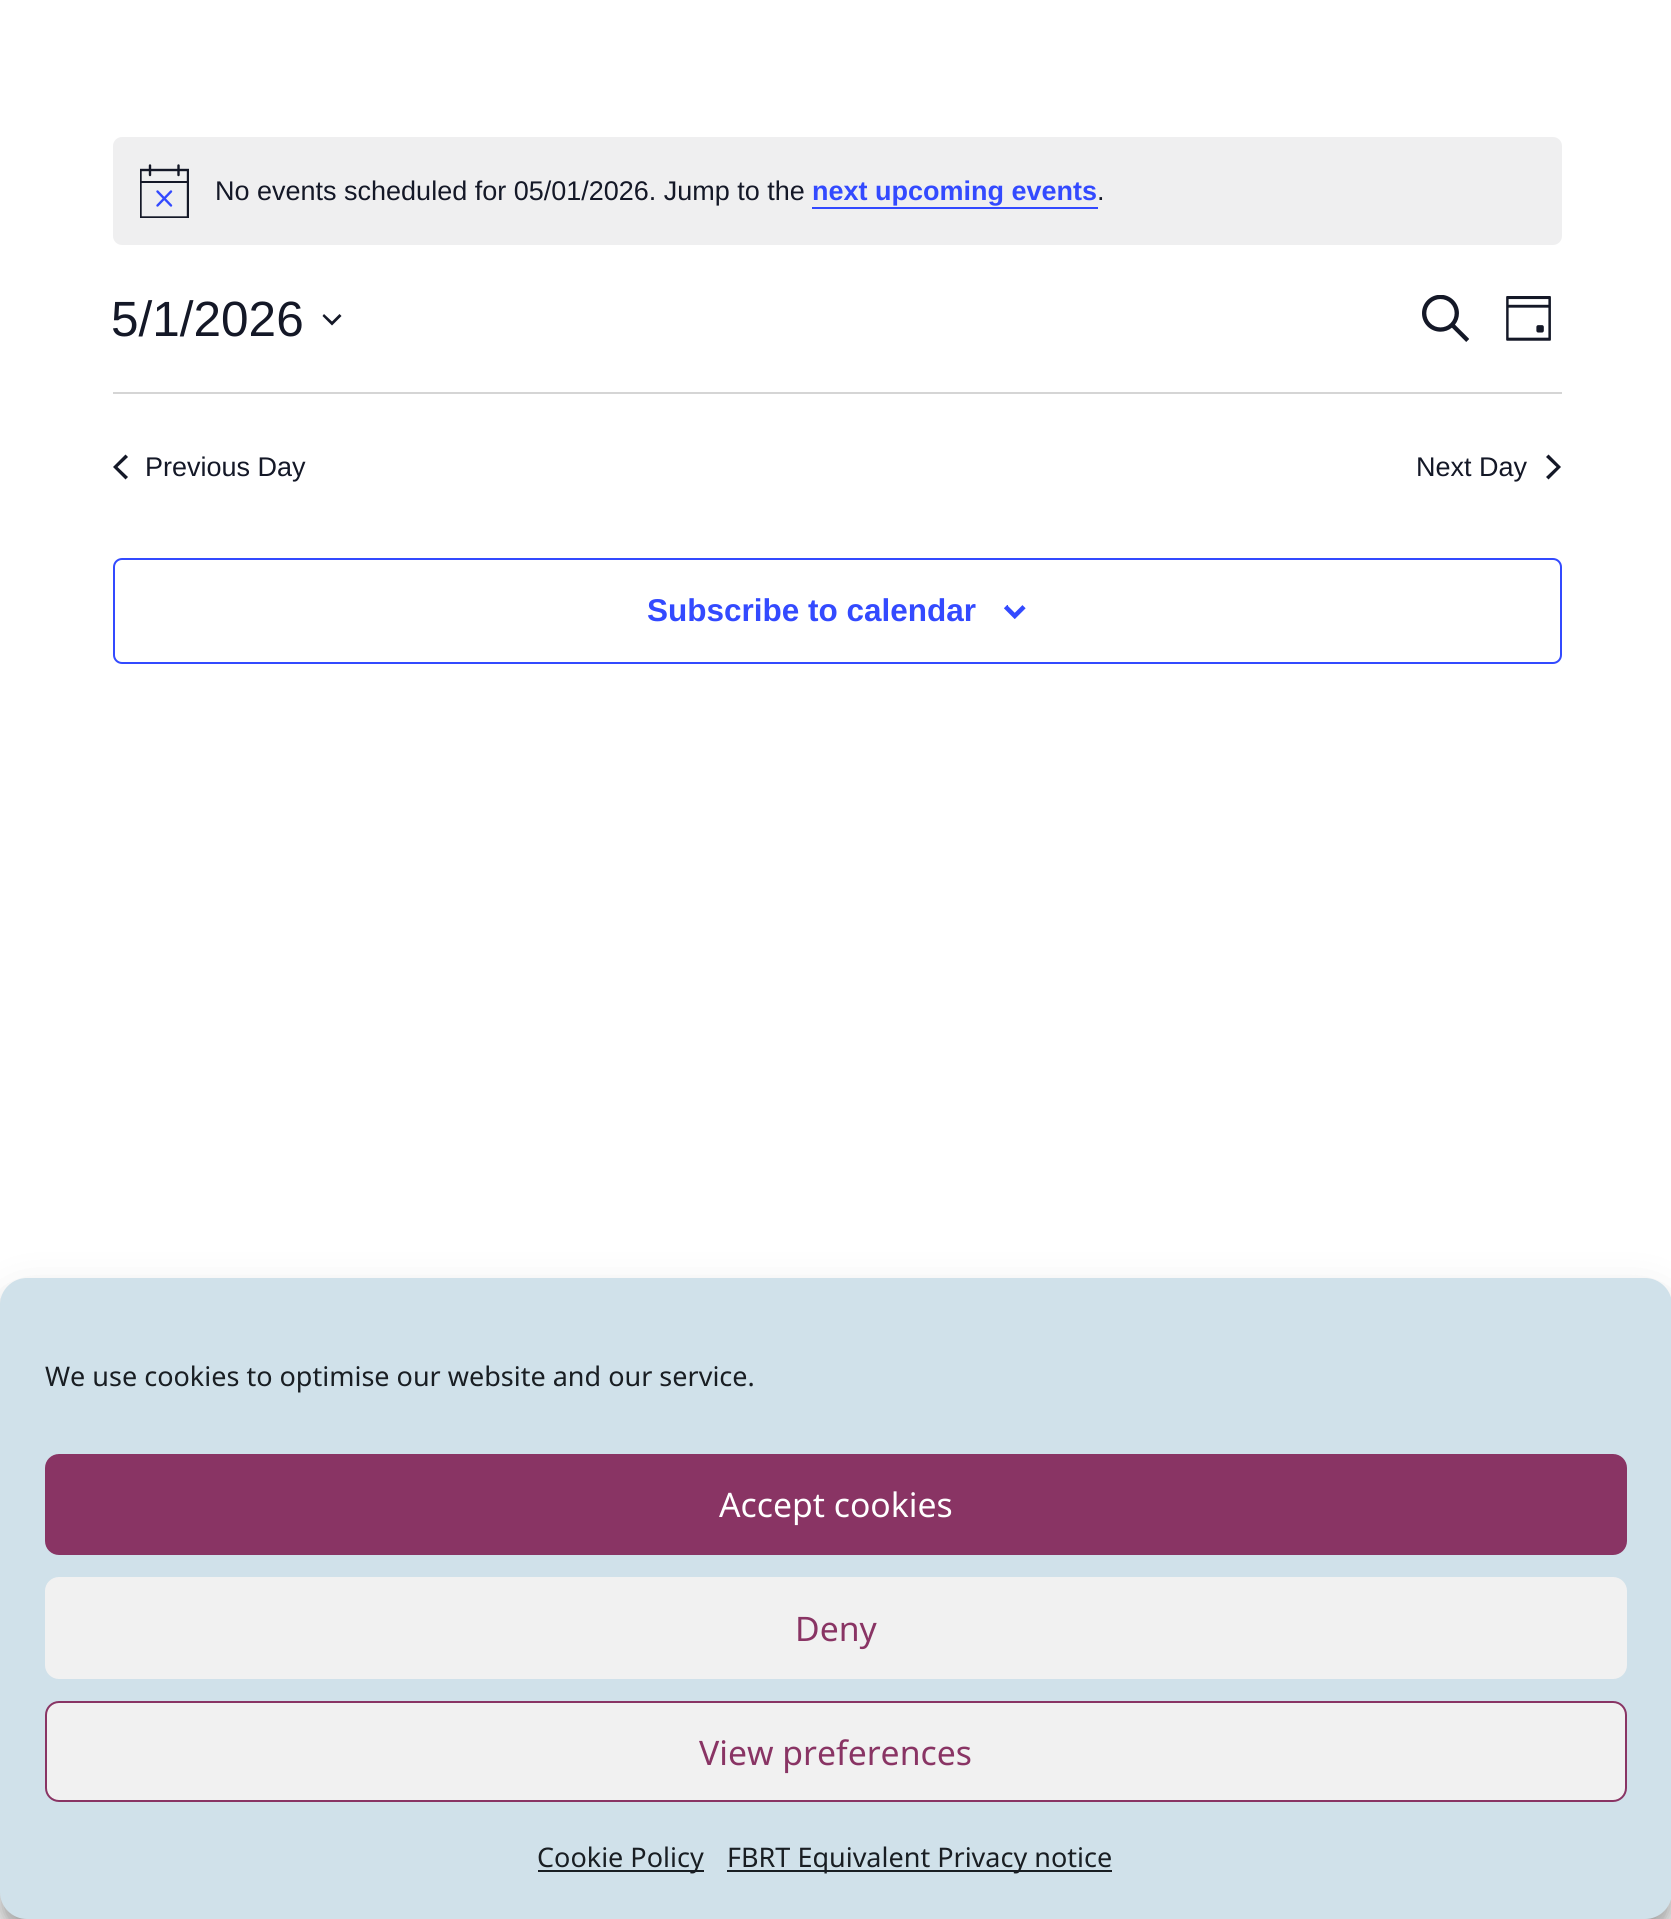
#include <cairo/cairo.h>
#include <math.h>
#include <stddef.h>

static cairo_t *cr;

static void use_color(int r, int g, int b) {
  cairo_set_source_rgb(cr, r / 255.0, g / 255.0, b / 255.0);
}

static void text(double x, double y, const char *s, const char *family, double size, int italic, int bold, int r, int g, int b) {
  cairo_select_font_face(cr, family, italic ? CAIRO_FONT_SLANT_ITALIC : CAIRO_FONT_SLANT_NORMAL,
    bold ? CAIRO_FONT_WEIGHT_BOLD : CAIRO_FONT_WEIGHT_NORMAL);
  cairo_set_font_size(cr, size);
  use_color(r, g, b);
  cairo_move_to(cr, x, y);
  cairo_show_text(cr, s);
}

static void box(double x, double y, double w, double h, int r, int g, int b) {
  use_color(r, g, b);
  cairo_rectangle(cr, x, y, w, h);
  cairo_fill(cr);
}

static void round_rect(double x, double y, double w, double h, double r) {
  cairo_new_sub_path(cr);
  cairo_arc(cr, x + w - r, y + h - r, r, 0, M_PI / 2);
  cairo_arc(cr, x + r, y + h - r, r, M_PI / 2, M_PI);
  cairo_arc(cr, x + r, y + r, r, M_PI, 1.5 * M_PI);
  cairo_arc(cr, x + w - r, y + r, r, 1.5 * M_PI, 2 * M_PI);
  cairo_close_path(cr);
}

static void shadow(double x, double y, double w, double h, double r, double blur, double alpha) {
  cairo_push_group_with_content(cr, CAIRO_CONTENT_ALPHA);
  cairo_set_operator(cr, CAIRO_OPERATOR_SOURCE);
  for (int i = 15; i >= -15 && fmin(w, h) + blur * i / 3 > 0; i -= 2) {
    double e = blur * i / 6;
    cairo_set_source_rgba(cr, 0, 0, 0, alpha * erfc((i - 1) / 8.5) / 2);
    round_rect(x - e, y - e, w + 2 * e, h + 2 * e, fmax(0, fmin(r + e + blur * .6, fmin(w, h) / 2 + e)));
    cairo_fill(cr);
  }
  cairo_pattern_t *soft = cairo_pop_group(cr);
  cairo_mask(cr, soft);
  cairo_pattern_destroy(soft);
}

static void picture(const char *path, double x, double y, double w, double h) {
  cairo_surface_t *image = cairo_image_surface_create_from_png(path);
  cairo_save(cr);
  cairo_set_source_surface(cr, image, x, y);
  cairo_rectangle(cr, x, y, w, h);
  cairo_fill(cr);
  cairo_restore(cr);
  cairo_surface_destroy(image);
}

static void draw(void) {
  use_color(255, 255, 255);
  cairo_paint(cr);
  use_color(239, 239, 240);
  round_rect(113, 137, 1449, 108, 9);
  cairo_fill(cr);
  cairo_save(cr);
  cairo_rectangle(cr, 140, 164, 49, 54);
  cairo_clip(cr);
  cairo_new_path(cr);
  cairo_move_to(cr, 140.5, 170);
  cairo_line_to(cr, 188, 170);
  cairo_line_to(cr, 188, 217.5);
  cairo_line_to(cr, 140.5, 217.5);
  cairo_close_path(cr);
  use_color(20, 24, 39);
  cairo_set_line_width(cr, 2.4);
  cairo_stroke(cr);
  cairo_restore(cr);
  cairo_new_path(cr);
  cairo_move_to(cr, 157.5, 191.5);
  cairo_line_to(cr, 171, 205.5);
  cairo_move_to(cr, 171, 191.5);
  cairo_line_to(cr, 157.5, 205.5);
  use_color(51, 74, 255);
  cairo_set_line_width(cr, 2.4);
  cairo_set_line_cap(cr, CAIRO_LINE_CAP_ROUND);
  cairo_stroke(cr);
  cairo_new_path(cr);
  cairo_move_to(cr, 150, 165.5);
  cairo_line_to(cr, 150, 175);
  cairo_move_to(cr, 178.5, 165.5);
  cairo_line_to(cr, 178.5, 175);
  use_color(20, 24, 39);
  cairo_stroke(cr);
  box(140, 181, 49, 2, 20, 24, 39);
  box(812, 207, 286, 2, 51, 74, 255);
  use_color(20, 24, 39);
  cairo_set_fill_rule(cr, CAIRO_FILL_RULE_EVEN_ODD);
  cairo_new_path(cr);
  cairo_move_to(cr, 324, 314);
  cairo_line_to(cr, 332, 321.5);
  cairo_line_to(cr, 339.5, 314);
  cairo_line_to(cr, 341.5, 316);
  cairo_line_to(cr, 332, 325.5);
  cairo_line_to(cr, 322.5, 316);
  cairo_close_path(cr);
  cairo_fill(cr);
  picture("img_01.png", 1422, 295, 47, 47);
  picture("img_02.png", 1506, 296, 45, 45);
  box(113, 392, 1449, 2, 213, 213, 213);
  use_color(20, 24, 39);
  cairo_set_fill_rule(cr, CAIRO_FILL_RULE_WINDING);
  cairo_new_path(cr);
  cairo_move_to(cr, 128, 477);
  cairo_line_to(cr, 125.5, 479.5);
  cairo_line_to(cr, 113, 467);
  cairo_line_to(cr, 125.5, 454.5);
  cairo_line_to(cr, 128, 457);
  cairo_line_to(cr, 117.5, 467);
  cairo_close_path(cr);
  cairo_fill(cr);
  cairo_new_path(cr);
  cairo_move_to(cr, 1546, 457);
  cairo_line_to(cr, 1548.5, 454.5);
  cairo_line_to(cr, 1561, 467);
  cairo_line_to(cr, 1548.5, 479.5);
  cairo_line_to(cr, 1546, 477);
  cairo_line_to(cr, 1556.5, 467);
  cairo_close_path(cr);
  cairo_fill(cr);
  round_rect(114, 559, 1447, 104, 8);
  use_color(51, 74, 255);
  cairo_set_line_width(cr, 2);
  cairo_set_line_cap(cr, CAIRO_LINE_CAP_BUTT);
  cairo_stroke(cr);
  picture("img_03.png", 1004, 605, 22, 14);
  use_color(0, 0, 0);
  shadow(0, 1292, 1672, 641, 27, 7, 0.23);
  shadow(0, 1301, 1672, 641, 27, 22.5, 0.19);
  use_color(208, 225, 234);
  round_rect(0, 1278, 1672, 641, 27);
  cairo_fill(cr);
  use_color(137, 52, 100);
  round_rect(46, 1455, 1580, 99, 13);
  cairo_fill_preserve(cr);
  cairo_stroke(cr);
  use_color(241, 241, 241);
  round_rect(46, 1578, 1580, 100, 13);
  cairo_fill_preserve(cr);
  cairo_stroke(cr);
  round_rect(46, 1702, 1580, 99, 13);
  cairo_fill_preserve(cr);
  use_color(137, 52, 100);
  cairo_stroke(cr);
  box(538, 1870, 166, 2, 25, 30, 35);
  box(727, 1870, 385, 2, 25, 30, 35);
  text(215, 200, "No events scheduled for 05/01/2026. Jump to the", "Liberation Sans", 27, 0, 0, 20, 24, 39);
  text(812, 200, "next upcoming events", "Liberation Sans", 27, 0, 1, 51, 74, 255);
  text(1097, 200, ".", "Liberation Sans", 27, 0, 0, 20, 24, 39);
  text(111, 336, "5/1/2026", "Liberation Sans", 49.5, 0, 0, 20, 24, 39);
  text(145, 476, "Previous Day", "Liberation Sans", 27, 0, 0, 20, 24, 39);
  text(1416, 476, "Next Day", "Liberation Sans", 27, 0, 0, 20, 24, 39);
  text(647, 621, "Subscribe to calendar", "Liberation Sans", 31.5, 0, 1, 51, 74, 255);
  text(45, 1386, "We use cookies to optimise our website and our service.", "Noto Sans", 27, 0, 0, 25, 30, 35);
  text(719, 1517, "Accept cookies", "Noto Sans", 33.75, 0, 0, 255, 255, 255);
  text(795, 1641, "Deny", "Noto Sans", 33.75, 0, 0, 137, 52, 100);
  text(699, 1765, "View preferences", "Noto Sans", 33.75, 0, 0, 137, 52, 100);
  text(537, 1867, "Cookie Policy", "Noto Sans", 27, 0, 0, 25, 30, 35);
  text(727, 1867, "FBRT Equivalent Privacy notice", "Noto Sans", 27, 0, 0, 25, 30, 35);
}

int main(void) {
  cairo_surface_t *surface = cairo_image_surface_create(CAIRO_FORMAT_RGB24, 1671, 1919);
  cr = cairo_create(surface);
  cairo_font_options_t *options = cairo_font_options_create();
  cairo_font_options_set_hint_metrics(options, CAIRO_HINT_METRICS_OFF);
  cairo_font_options_set_hint_style(options, CAIRO_HINT_STYLE_NONE);
  cairo_set_font_options(cr, options);
  cairo_set_miter_limit(cr, 4);
  draw();
  cairo_surface_write_to_png(surface, "out.png");
  cairo_font_options_destroy(options);
  cairo_destroy(cr);
  cairo_surface_destroy(surface);
  return 0;
}
